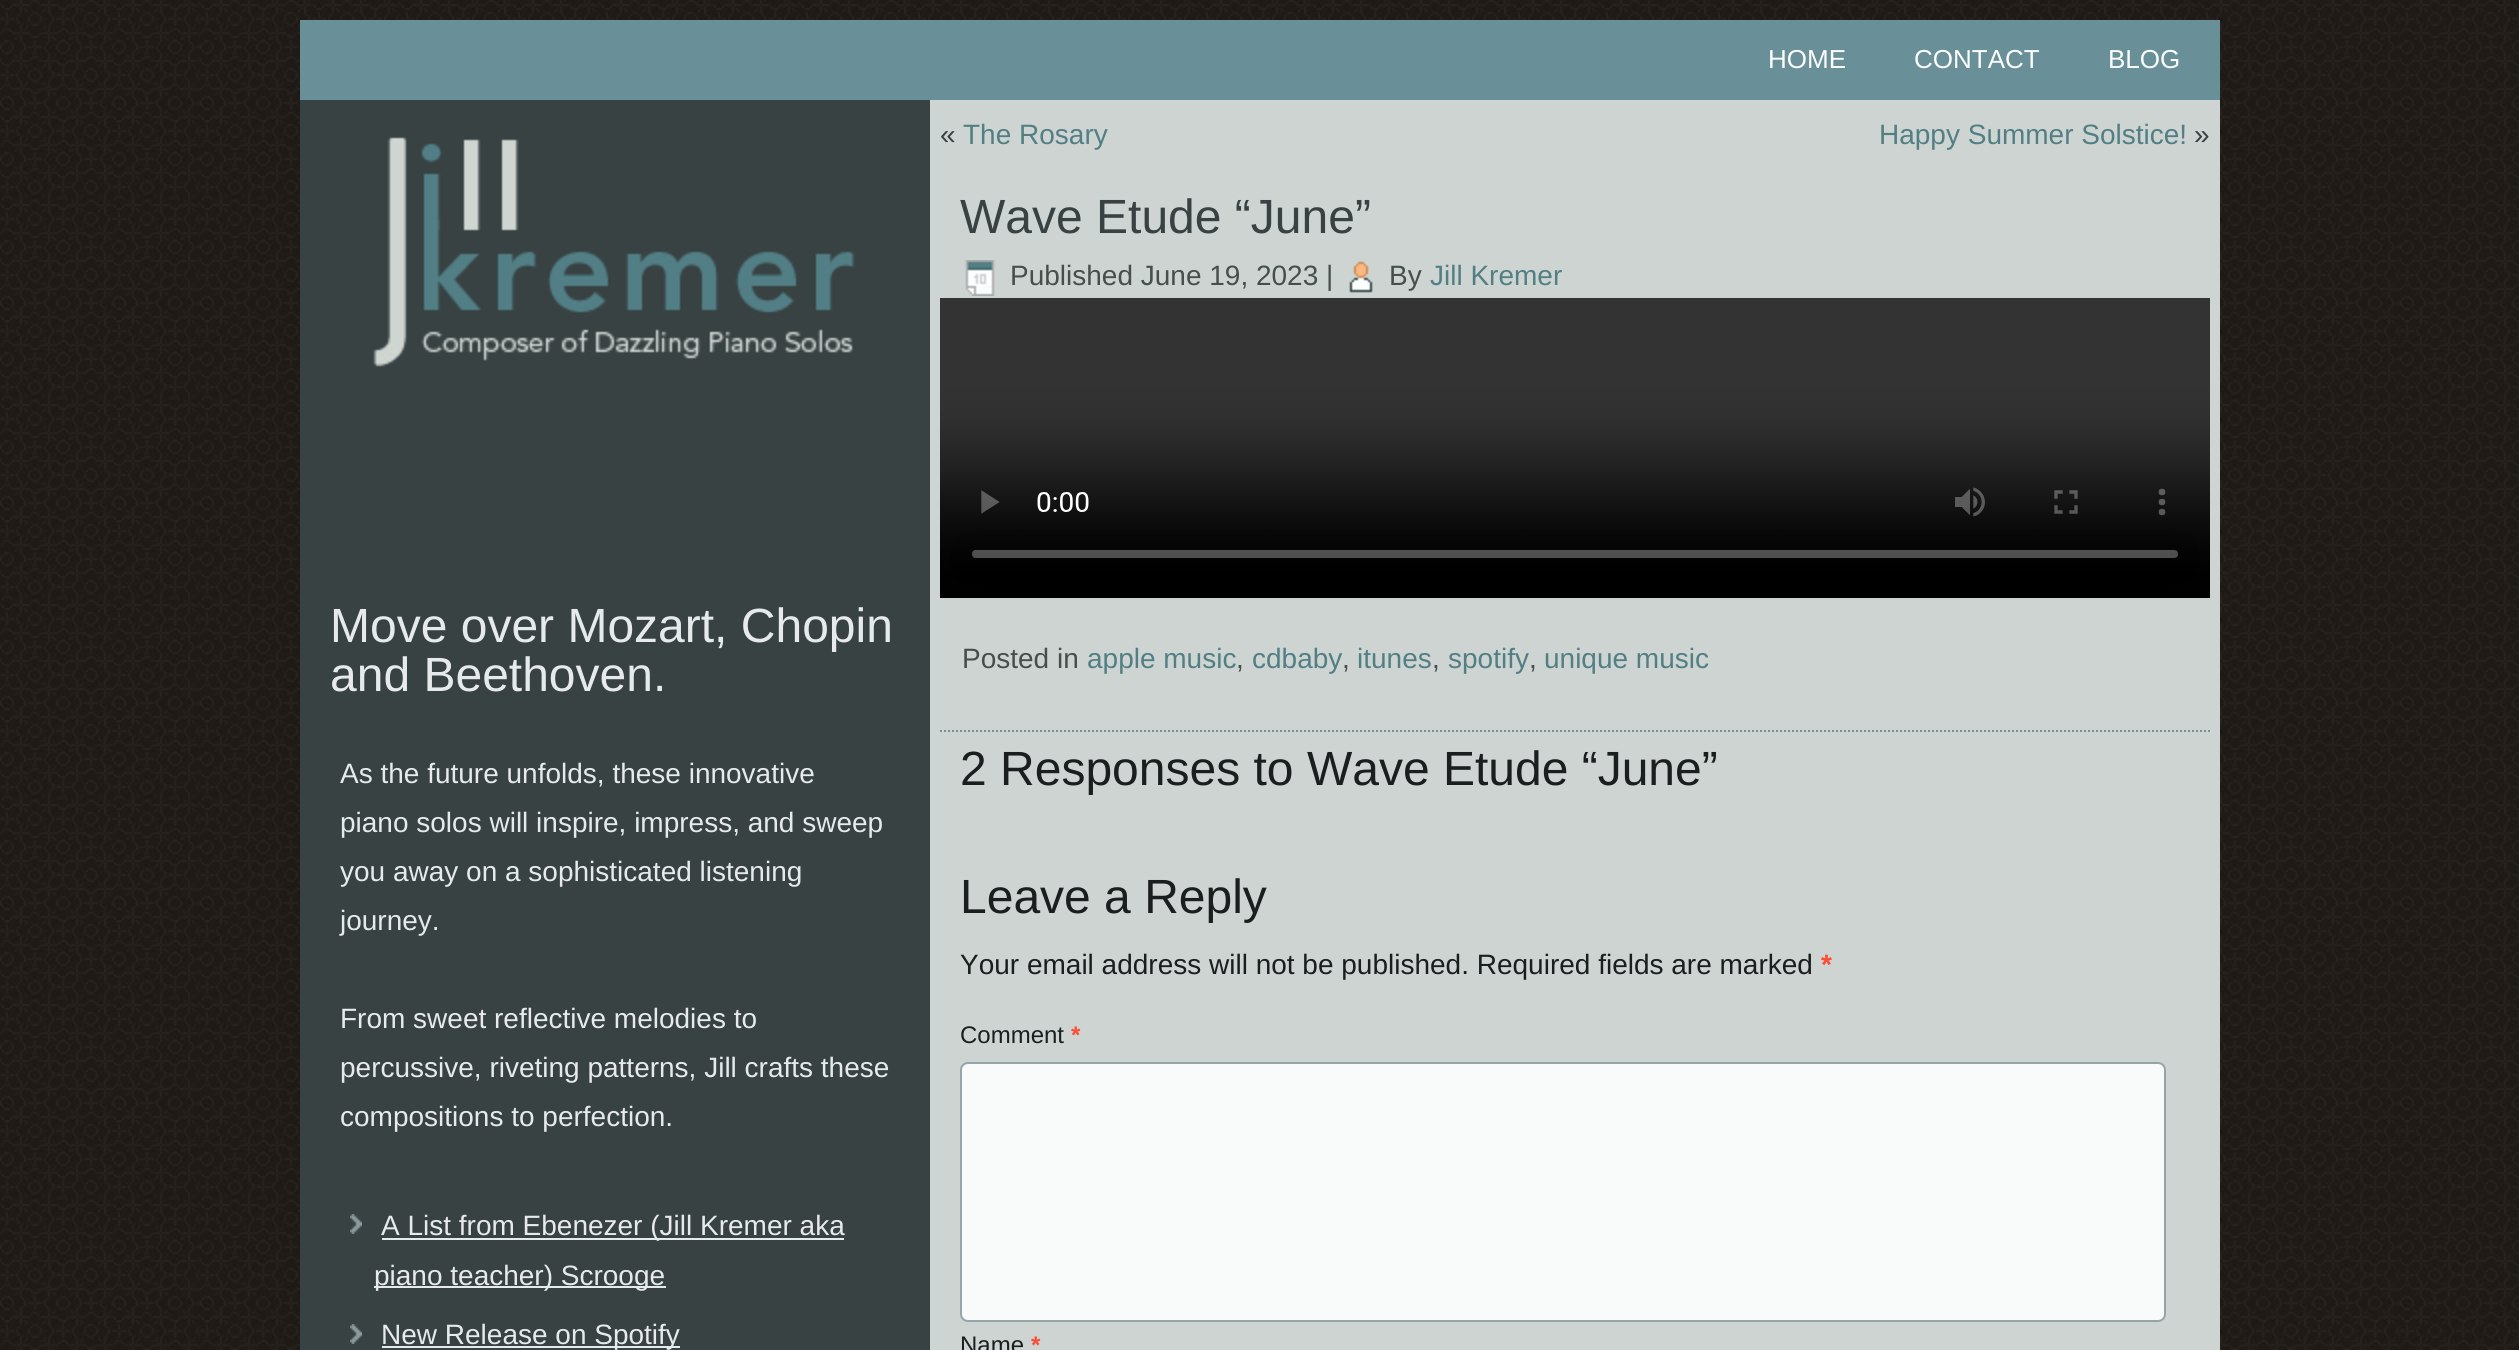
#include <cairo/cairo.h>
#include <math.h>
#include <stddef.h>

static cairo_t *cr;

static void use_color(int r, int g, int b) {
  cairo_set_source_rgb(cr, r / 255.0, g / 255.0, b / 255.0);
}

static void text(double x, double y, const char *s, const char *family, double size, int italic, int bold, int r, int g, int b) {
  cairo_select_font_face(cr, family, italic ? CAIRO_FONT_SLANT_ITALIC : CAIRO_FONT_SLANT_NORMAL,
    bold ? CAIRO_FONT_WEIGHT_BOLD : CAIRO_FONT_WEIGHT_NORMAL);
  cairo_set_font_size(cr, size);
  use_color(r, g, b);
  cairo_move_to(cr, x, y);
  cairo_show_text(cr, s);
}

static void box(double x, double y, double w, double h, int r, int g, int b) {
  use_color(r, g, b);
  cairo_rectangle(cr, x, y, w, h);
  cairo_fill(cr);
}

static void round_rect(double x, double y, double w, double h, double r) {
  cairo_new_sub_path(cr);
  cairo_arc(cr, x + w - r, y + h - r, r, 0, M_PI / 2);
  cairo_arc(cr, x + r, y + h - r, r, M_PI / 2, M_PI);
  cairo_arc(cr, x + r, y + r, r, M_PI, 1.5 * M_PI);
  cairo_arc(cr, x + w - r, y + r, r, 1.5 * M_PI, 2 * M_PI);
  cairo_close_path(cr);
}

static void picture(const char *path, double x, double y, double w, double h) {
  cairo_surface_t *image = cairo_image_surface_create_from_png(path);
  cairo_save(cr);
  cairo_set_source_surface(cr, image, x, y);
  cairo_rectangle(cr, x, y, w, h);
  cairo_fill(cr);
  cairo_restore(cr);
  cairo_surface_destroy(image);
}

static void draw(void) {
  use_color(255, 255, 255);
  cairo_paint(cr);
  picture("img_01.png", 0, 0, 2519, 1350);
  box(930, 100, 1290, 1250, 206, 212, 210);
  box(300, 20, 1920, 80, 105, 143, 152);
  box(300, 100, 630, 1250, 56, 66, 67);
  picture("img_02.png", 373, 137, 482, 230);
  picture("img_03.png", 350, 1214, 12, 20);
  box(382, 1238, 462, 2, 230, 234, 234);
  box(374, 1286, 292, 2, 230, 234, 234);
  picture("img_03.png", 350, 1324, 12, 20);
  box(382, 1346, 298, 2, 230, 234, 234);
  picture("img_04.png", 965, 260, 30, 36);
  picture("img_05.png", 1349, 261, 24, 32);
  picture("img_06.png", 940, 298, 1270, 300);
  cairo_new_path(cr);
  cairo_move_to(cr, 940, 731);
  cairo_line_to(cr, 2210, 731);
  use_color(124, 144, 146);
  cairo_set_dash(cr, (double[]){2, 2}, 2, 0);
  cairo_stroke(cr);
  use_color(249, 250, 250);
  round_rect(961, 1063, 1204, 258, 7);
  cairo_fill_preserve(cr);
  use_color(149, 165, 167);
  cairo_set_dash(cr, NULL, 0, 0);
  cairo_stroke(cr);
  text(1768, 68, "HOME", "Liberation Sans", 26, 0, 0, 252, 253, 253);
  text(1914, 68, "CONTACT", "Liberation Sans", 26, 0, 0, 252, 253, 253);
  text(2108, 68, "BLOG", "Liberation Sans", 26, 0, 0, 252, 253, 253);
  text(330, 642, "Move over Mozart, Chopin", "Liberation Sans", 48, 0, 0, 230, 234, 234);
  text(330, 691, "and Beethoven.", "Liberation Sans", 48, 0, 0, 230, 234, 234);
  text(340, 783, "As the future unfolds, these innovative", "Liberation Sans", 28, 0, 0, 230, 234, 234);
  text(340, 832, "piano solos will inspire, impress, and sweep", "Liberation Sans", 28, 0, 0, 230, 234, 234);
  text(340, 881, "you away on a sophisticated listening", "Liberation Sans", 28, 0, 0, 230, 234, 234);
  text(340, 930, "journey.", "Liberation Sans", 28, 0, 0, 230, 234, 234);
  text(340, 1028, "From sweet reflective melodies to", "Liberation Sans", 28, 0, 0, 230, 234, 234);
  text(340, 1077, "percussive, riveting patterns, Jill crafts these", "Liberation Sans", 28, 0, 0, 230, 234, 234);
  text(340, 1126, "compositions to perfection.", "Liberation Sans", 28, 0, 0, 230, 234, 234);
  text(381, 1235, "A List from Ebenezer (Jill Kremer aka", "Liberation Sans", 28, 0, 0, 230, 234, 234);
  text(374, 1285, "piano teacher) Scrooge", "Liberation Sans", 28, 0, 0, 230, 234, 234);
  text(381, 1344, "New Release on Spotify", "Liberation Sans", 28, 0, 0, 230, 234, 234);
  text(940, 144, "«", "Liberation Sans", 28, 0, 0, 56, 66, 67);
  text(963, 144, "The Rosary", "Liberation Sans", 28, 0, 0, 82, 127, 132);
  text(1879, 144, "Happy Summer Solstice!", "Liberation Sans", 28, 0, 0, 82, 127, 132);
  text(2194, 144, "»", "Liberation Sans", 28, 0, 0, 56, 66, 67);
  text(960, 233, "Wave Etude “June”", "Liberation Sans", 48, 0, 0, 56, 66, 67);
  text(1010, 285, "Published June 19, 2023 |", "Liberation Sans", 28, 0, 0, 69, 79, 76);
  text(1389, 285, "By", "Liberation Sans", 28, 0, 0, 69, 79, 76);
  text(1430, 285, "Jill Kremer", "Liberation Sans", 28, 0, 0, 82, 127, 132);
  text(962, 668, "Posted in", "Liberation Sans", 28, 0, 0, 69, 79, 76);
  text(1087, 668, "apple music", "Liberation Sans", 28, 0, 0, 82, 127, 132);
  text(1236, 668, ",", "Liberation Sans", 28, 0, 0, 69, 79, 76);
  text(1252, 668, "cdbaby", "Liberation Sans", 28, 0, 0, 82, 127, 132);
  text(1342, 668, ",", "Liberation Sans", 28, 0, 0, 69, 79, 76);
  text(1357, 668, "itunes", "Liberation Sans", 28, 0, 0, 82, 127, 132);
  text(1432, 668, ",", "Liberation Sans", 28, 0, 0, 69, 79, 76);
  text(1448, 668, "spotify", "Liberation Sans", 28, 0, 0, 82, 127, 132);
  text(1529, 668, ",", "Liberation Sans", 28, 0, 0, 69, 79, 76);
  text(1544, 668, "unique music", "Liberation Sans", 28, 0, 0, 82, 127, 132);
  text(960, 785, "2 Responses to Wave Etude “June”", "Liberation Sans", 48, 0, 0, 26, 30, 31);
  text(960, 913, "Leave a Reply", "Liberation Sans", 48, 0, 0, 26, 30, 31);
  text(960, 974, "Your email address will not be published. Required fields are marked", "Liberation Sans", 28, 0, 0, 26, 30, 31);
  text(1821, 974, "*", "Liberation Sans", 28, 0, 1, 255, 75, 51);
  text(960, 1043, "Comment", "Liberation Sans", 24, 0, 0, 26, 30, 31);
  text(1071, 1043, "*", "Liberation Sans", 24, 0, 1, 255, 75, 51);
  text(960, 1353, "Name", "Liberation Sans", 24, 0, 0, 26, 30, 31);
  text(1031, 1353, "*", "Liberation Sans", 24, 0, 1, 255, 75, 51);
}

int main(void) {
  cairo_surface_t *surface = cairo_image_surface_create(CAIRO_FORMAT_RGB24, 2519, 1350);
  cr = cairo_create(surface);
  cairo_font_options_t *options = cairo_font_options_create();
  cairo_font_options_set_hint_metrics(options, CAIRO_HINT_METRICS_OFF);
  cairo_font_options_set_hint_style(options, CAIRO_HINT_STYLE_NONE);
  cairo_set_font_options(cr, options);
  cairo_set_miter_limit(cr, 4);
  draw();
  cairo_surface_write_to_png(surface, "out.png");
  cairo_font_options_destroy(options);
  cairo_destroy(cr);
  cairo_surface_destroy(surface);
  return 0;
}
